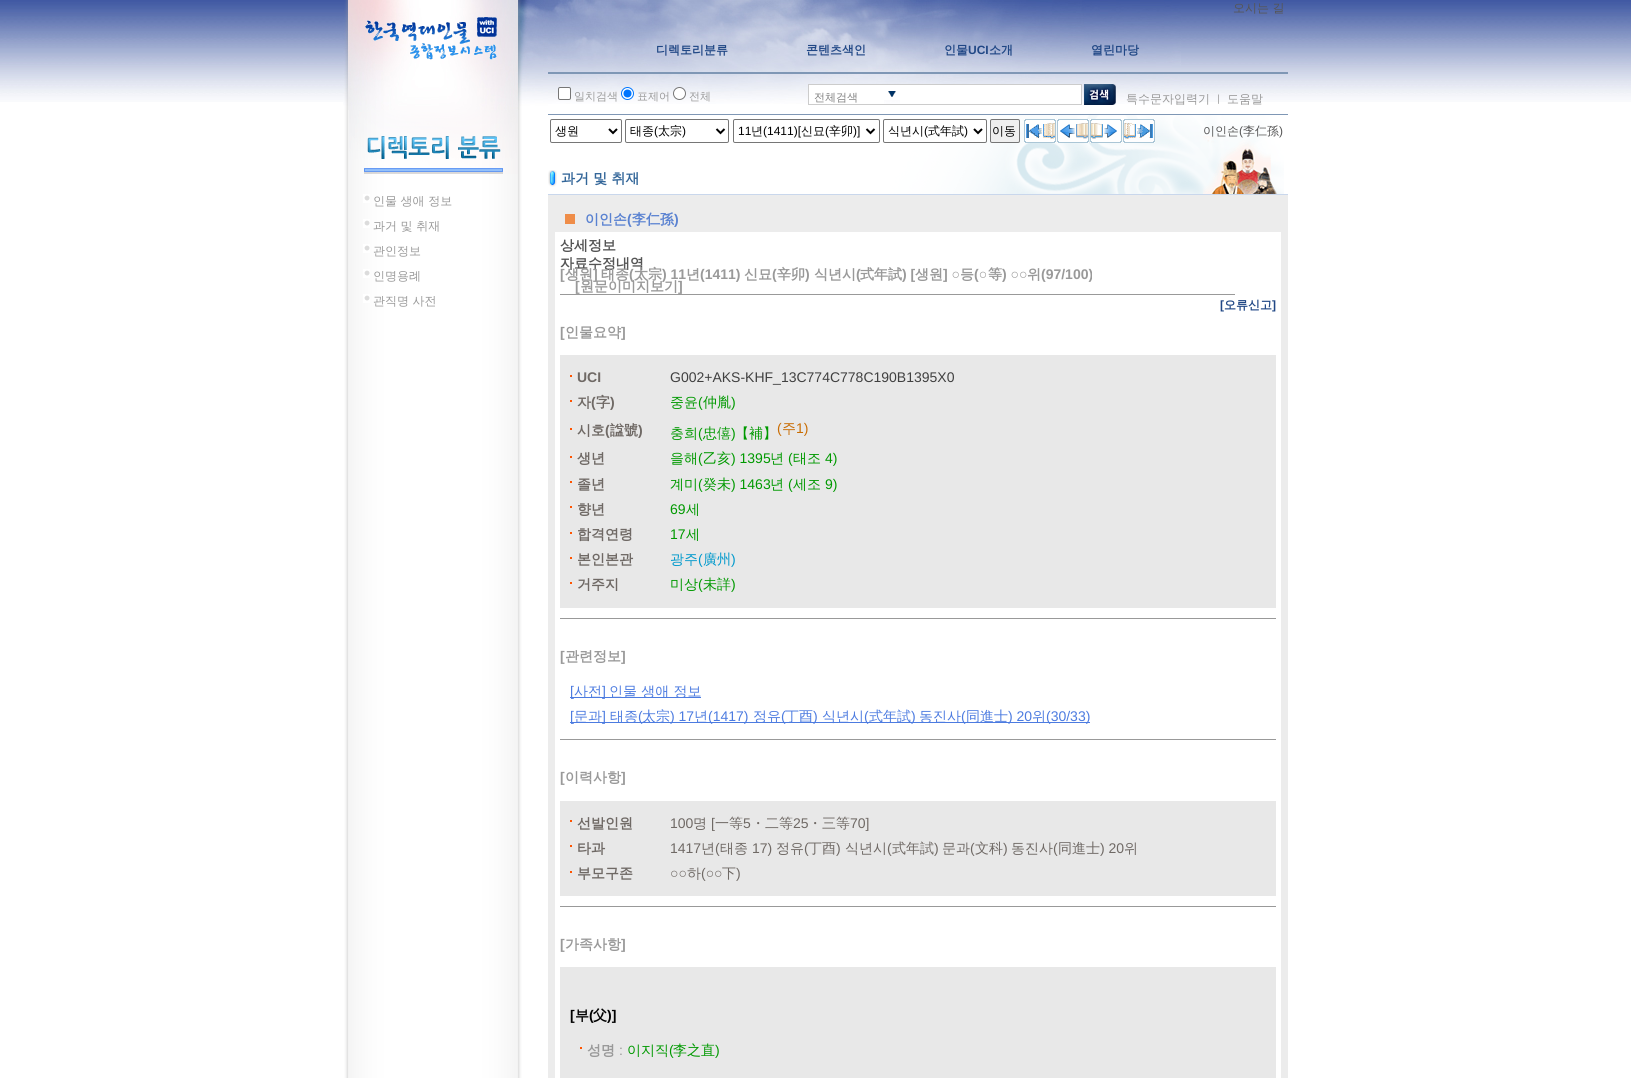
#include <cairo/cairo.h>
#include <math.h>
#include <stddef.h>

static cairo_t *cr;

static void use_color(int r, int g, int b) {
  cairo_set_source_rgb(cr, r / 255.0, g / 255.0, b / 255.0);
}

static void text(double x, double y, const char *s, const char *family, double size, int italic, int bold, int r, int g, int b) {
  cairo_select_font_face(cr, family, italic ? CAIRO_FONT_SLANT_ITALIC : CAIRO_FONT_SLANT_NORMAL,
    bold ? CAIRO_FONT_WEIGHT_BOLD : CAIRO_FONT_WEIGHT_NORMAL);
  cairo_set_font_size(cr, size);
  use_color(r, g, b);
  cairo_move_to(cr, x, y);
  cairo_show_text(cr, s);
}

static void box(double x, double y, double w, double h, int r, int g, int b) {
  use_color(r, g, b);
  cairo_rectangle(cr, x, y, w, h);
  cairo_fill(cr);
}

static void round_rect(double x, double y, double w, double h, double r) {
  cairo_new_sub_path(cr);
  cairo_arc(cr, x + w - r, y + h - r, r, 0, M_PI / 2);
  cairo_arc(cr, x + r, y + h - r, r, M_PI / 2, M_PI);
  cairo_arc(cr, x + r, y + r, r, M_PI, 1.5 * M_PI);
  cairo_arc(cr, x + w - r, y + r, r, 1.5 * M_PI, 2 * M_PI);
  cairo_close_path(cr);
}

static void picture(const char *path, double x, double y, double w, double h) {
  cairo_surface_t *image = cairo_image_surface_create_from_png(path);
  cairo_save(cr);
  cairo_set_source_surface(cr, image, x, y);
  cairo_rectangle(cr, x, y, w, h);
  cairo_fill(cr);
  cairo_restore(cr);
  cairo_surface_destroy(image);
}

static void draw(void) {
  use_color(255, 255, 255);
  cairo_paint(cr);
  picture("img_01.png", 0, 0, 1631, 102);
  picture("img_02.png", 343, 110, 205, 968);
  picture("img_03.png", 343, 0, 205, 110);
  picture("img_04.png", 365, 17, 132, 43);
  picture("img_05.png", 349, 110, 169, 64);
  picture("img_06.png", 363, 194, 7, 9);
  picture("img_06.png", 363, 219, 7, 9);
  picture("img_06.png", 363, 244, 7, 9);
  picture("img_06.png", 363, 269, 7, 9);
  picture("img_06.png", 363, 294, 7, 9);
  picture("img_07.png", 548, 0, 633, 104);
  box(548, 72, 740, 2, 127, 151, 181);
  box(548, 114, 740, 1, 127, 151, 181);
  use_color(255, 255, 255);
  round_rect(558.5, 87.5, 12, 12, 1.5);
  cairo_fill_preserve(cr);
  use_color(118, 118, 118);
  cairo_set_line_width(cr, 1);
  cairo_stroke(cr);
  use_color(255, 255, 255);
  cairo_arc(cr, 627.5, 93.5, 6, 0, 2 * M_PI);
  cairo_fill_preserve(cr);
  use_color(0, 117, 255);
  cairo_stroke(cr);
  cairo_arc(cr, 627.5, 93.5, 4, 0, 2 * M_PI);
  cairo_fill(cr);
  use_color(255, 255, 255);
  cairo_arc(cr, 679.5, 93.5, 6, 0, 2 * M_PI);
  cairo_fill_preserve(cr);
  use_color(118, 118, 118);
  cairo_stroke(cr);
  box(809, 85, 75, 19, 255, 255, 255);
  box(808, 84, 274, 1, 204, 204, 204);
  box(808, 104, 92, 1, 204, 204, 204);
  box(808, 84, 1, 21, 204, 204, 204);
  picture("img_08.png", 884, 85, 16, 15);
  box(900, 85, 181, 19, 255, 255, 255);
  box(1081, 84, 1, 21, 204, 204, 204);
  box(900, 104, 182, 1, 204, 204, 204);
  picture("img_09.png", 1083, 84, 33, 21);
  picture("img_10.png", 548, 115, 740, 80);
  round_rect(550.5, 119.5, 71, 23, 1.5);
  use_color(118, 118, 118);
  cairo_stroke(cr);
  cairo_new_path(cr);
  cairo_move_to(cr, 609, 129);
  cairo_line_to(cr, 613, 133);
  cairo_line_to(cr, 617, 129);
  use_color(0, 0, 0);
  cairo_set_line_width(cr, 2);
  cairo_stroke(cr);
  round_rect(625.5, 119.5, 103, 23, 1.5);
  use_color(118, 118, 118);
  cairo_set_line_width(cr, 1);
  cairo_stroke(cr);
  cairo_new_path(cr);
  cairo_move_to(cr, 716.5, 129);
  cairo_line_to(cr, 720.5, 133);
  cairo_line_to(cr, 724.5, 129);
  use_color(0, 0, 0);
  cairo_set_line_width(cr, 2);
  cairo_stroke(cr);
  round_rect(733.5, 119.5, 146, 23, 1.5);
  use_color(118, 118, 118);
  cairo_set_line_width(cr, 1);
  cairo_stroke(cr);
  cairo_new_path(cr);
  cairo_move_to(cr, 866.5, 129);
  cairo_line_to(cr, 870.5, 133);
  cairo_line_to(cr, 874.5, 129);
  use_color(0, 0, 0);
  cairo_set_line_width(cr, 2);
  cairo_stroke(cr);
  use_color(255, 255, 255);
  round_rect(883.5, 119.5, 103, 23, 1.5);
  cairo_fill_preserve(cr);
  use_color(118, 118, 118);
  cairo_set_line_width(cr, 1);
  cairo_stroke(cr);
  cairo_new_path(cr);
  cairo_move_to(cr, 974, 129);
  cairo_line_to(cr, 978, 133);
  cairo_line_to(cr, 982, 129);
  use_color(0, 0, 0);
  cairo_set_line_width(cr, 2);
  cairo_stroke(cr);
  use_color(239, 239, 239);
  round_rect(990.5, 119.5, 29, 23, 1.5);
  cairo_fill_preserve(cr);
  use_color(118, 118, 118);
  cairo_set_line_width(cr, 1);
  cairo_stroke(cr);
  picture("img_11.png", 1024, 119, 32, 24);
  picture("img_12.png", 1057, 119, 32, 24);
  picture("img_13.png", 1090, 119, 32, 24);
  picture("img_14.png", 1123, 119, 32, 24);
  picture("img_15.png", 548, 170, 9, 17);
  cairo_rectangle(cr, 551.5, 198.5, 733, 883);
  use_color(236, 236, 236);
  cairo_set_line_width(cr, 7);
  cairo_stroke(cr);
  box(555, 202, 726, 30, 236, 236, 236);
  box(565, 214, 10, 10, 239, 141, 73);
  box(560, 294, 675, 1, 153, 153, 153);
  box(560, 618, 716, 1, 153, 153, 153);
  box(560, 355, 716, 253, 232, 232, 232);
  box(570, 375, 2, 2, 255, 84, 0);
  box(570, 400, 2, 2, 255, 84, 0);
  box(570, 428, 2, 2, 255, 84, 0);
  box(570, 456, 2, 2, 255, 84, 0);
  box(570, 481, 2, 2, 255, 84, 0);
  box(570, 506, 2, 2, 255, 84, 0);
  box(570, 532, 2, 2, 255, 84, 0);
  box(570, 557, 2, 2, 255, 84, 0);
  box(570, 582, 2, 2, 255, 84, 0);
  box(560, 739, 716, 1, 153, 153, 153);
  box(570, 697, 131, 1, 76, 123, 224);
  box(570, 722, 520, 1, 76, 123, 224);
  box(560, 906, 716, 1, 153, 153, 153);
  box(560, 801, 716, 95, 232, 232, 232);
  box(570, 820, 2, 2, 255, 84, 0);
  box(570, 845, 2, 2, 255, 84, 0);
  box(570, 871, 2, 2, 255, 84, 0);
  box(560, 967, 716, 111, 232, 232, 232);
  box(580, 1047, 2, 2, 255, 84, 0);
  text(373, 205, "인물 생애 정보", "WenQuanYi Zen Hei Medium", 12, 0, 0, 153, 153, 153);
  text(373, 230, "과거 및 취재", "WenQuanYi Zen Hei Medium", 12, 0, 0, 153, 153, 153);
  text(373, 255, "관인정보", "WenQuanYi Zen Hei Medium", 12, 0, 0, 153, 153, 153);
  text(373, 280, "인명용례", "WenQuanYi Zen Hei Medium", 12, 0, 0, 153, 153, 153);
  text(373, 305, "관직명 사전", "WenQuanYi Zen Hei Medium", 12, 0, 0, 153, 153, 153);
  text(1233, 12, "오시는 길", "WenQuanYi Zen Hei Medium", 12, 0, 0, 85, 85, 85);
  text(656, 54, "디렉토리분류", "WenQuanYi Zen Hei", 12, 0, 1, 32, 71, 133);
  text(806, 54, "콘텐츠색인", "WenQuanYi Zen Hei", 12, 0, 1, 32, 71, 133);
  text(944, 54, "인물", "WenQuanYi Zen Hei", 12, 0, 1, 32, 71, 133);
  text(968, 54, "UCI", "Liberation Sans", 12, 0, 1, 32, 71, 133);
  text(989, 54, "소개", "WenQuanYi Zen Hei", 12, 0, 1, 32, 71, 133);
  text(1091, 54, "열린마당", "WenQuanYi Zen Hei", 12, 0, 1, 32, 71, 133);
  text(574, 100, "일치검색", "WenQuanYi Zen Hei Medium", 11, 0, 0, 153, 153, 153);
  text(637, 100, "표제어", "WenQuanYi Zen Hei Medium", 11, 0, 0, 153, 153, 153);
  text(689, 100, "전체", "WenQuanYi Zen Hei Medium", 11, 0, 0, 153, 153, 153);
  text(814, 101, "전체검색", "WenQuanYi Zen Hei Medium", 11, 0, 0, 126, 126, 126);
  text(1126, 103, "특수문자입력기", "WenQuanYi Zen Hei Medium", 12, 0, 0, 153, 153, 153);
  text(1213, 103, "ㅣ", "WenQuanYi Zen Hei Medium", 11, 0, 0, 153, 153, 153);
  text(1227, 103, "도움말", "WenQuanYi Zen Hei Medium", 12, 0, 0, 153, 153, 153);
  text(555, 135, "생원", "WenQuanYi Zen Hei Medium", 12, 0, 0, 0, 0, 0);
  text(630, 135, "태종", "WenQuanYi Zen Hei Medium", 12, 0, 0, 0, 0, 0);
  text(654, 135, "(", "Liberation Sans", 12, 0, 0, 0, 0, 0);
  text(658, 135, "太宗", "WenQuanYi Zen Hei Medium", 12, 0, 0, 0, 0, 0);
  text(682, 135, ")", "Liberation Sans", 12, 0, 0, 0, 0, 0);
  text(738, 135, "11", "Liberation Sans", 12, 0, 0, 0, 0, 0);
  text(751, 135, "년", "WenQuanYi Zen Hei Medium", 12, 0, 0, 0, 0, 0);
  text(763, 135, "(1411)[", "Liberation Sans", 12, 0, 0, 0, 0, 0);
  text(801, 135, "신묘", "WenQuanYi Zen Hei Medium", 12, 0, 0, 0, 0, 0);
  text(825, 135, "(", "Liberation Sans", 12, 0, 0, 0, 0, 0);
  text(829, 135, "辛卯", "WenQuanYi Zen Hei Medium", 12, 0, 0, 0, 0, 0);
  text(853, 135, ")]", "Liberation Sans", 12, 0, 0, 0, 0, 0);
  text(888, 135, "식년시", "WenQuanYi Zen Hei Medium", 12, 0, 0, 0, 0, 0);
  text(924, 135, "(", "Liberation Sans", 12, 0, 0, 0, 0, 0);
  text(928, 135, "式年試", "WenQuanYi Zen Hei Medium", 12, 0, 0, 0, 0, 0);
  text(964, 135, ")", "Liberation Sans", 12, 0, 0, 0, 0, 0);
  text(992, 135, "이동", "WenQuanYi Zen Hei Medium", 12, 0, 0, 0, 0, 0);
  text(1203, 135, "이인손", "WenQuanYi Zen Hei Medium", 12, 0, 0, 85, 85, 85);
  text(1239, 135, "(", "Liberation Sans", 12, 0, 0, 85, 85, 85);
  text(1243, 135, "李仁孫", "WenQuanYi Zen Hei Medium", 12, 0, 0, 85, 85, 85);
  text(1279, 135, ")", "Liberation Sans", 12, 0, 0, 85, 85, 85);
  text(561, 183, "과거 및 취재", "WenQuanYi Zen Hei", 14, 0, 1, 51, 102, 153);
  text(585, 224, "이인손", "WenQuanYi Zen Hei", 14, 0, 1, 90, 130, 209);
  text(627, 224, "(", "Liberation Sans", 14, 0, 1, 90, 130, 209);
  text(632, 224, "李仁孫", "WenQuanYi Zen Hei", 14, 0, 1, 90, 130, 209);
  text(674, 224, ")", "Liberation Sans", 14, 0, 1, 90, 130, 209);
  text(560, 250, "상세정보", "WenQuanYi Zen Hei", 14, 0, 1, 85, 85, 85);
  text(560, 268, "자료수정내역", "WenQuanYi Zen Hei", 14, 0, 1, 85, 85, 85);
  text(575, 291, "[", "Liberation Sans", 14, 0, 1, 153, 153, 153);
  text(580, 291, "원문이미지보기", "WenQuanYi Zen Hei", 14, 0, 1, 153, 153, 153);
  text(678, 291, "]", "Liberation Sans", 14, 0, 1, 153, 153, 153);
  text(1220, 309, "[", "Liberation Sans", 12, 0, 1, 32, 71, 133);
  text(1224, 309, "오류신고", "WenQuanYi Zen Hei", 12, 0, 1, 32, 71, 133);
  text(1272, 309, "]", "Liberation Sans", 12, 0, 1, 32, 71, 133);
  text(560, 279, "[", "Liberation Sans", 14, 0, 1, 153, 153, 153);
  text(565, 279, "생원", "WenQuanYi Zen Hei", 14, 0, 1, 153, 153, 153);
  text(593, 279, "]", "Liberation Sans", 14, 0, 1, 153, 153, 153);
  text(601, 279, "태종", "WenQuanYi Zen Hei", 14, 0, 1, 153, 153, 153);
  text(629, 279, "(", "Liberation Sans", 14, 0, 1, 153, 153, 153);
  text(634, 279, "太宗", "WenQuanYi Zen Hei", 14, 0, 1, 153, 153, 153);
  text(662, 279, ") 11", "Liberation Sans", 14, 0, 1, 153, 153, 153);
  text(686, 279, "년", "WenQuanYi Zen Hei", 14, 0, 1, 153, 153, 153);
  text(700, 279, "(1411)", "Liberation Sans", 14, 0, 1, 153, 153, 153);
  text(744, 279, "신묘", "WenQuanYi Zen Hei", 14, 0, 1, 153, 153, 153);
  text(772, 279, "(", "Liberation Sans", 14, 0, 1, 153, 153, 153);
  text(777, 279, "辛卯", "WenQuanYi Zen Hei", 14, 0, 1, 153, 153, 153);
  text(805, 279, ")", "Liberation Sans", 14, 0, 1, 153, 153, 153);
  text(814, 279, "식년시", "WenQuanYi Zen Hei", 14, 0, 1, 153, 153, 153);
  text(856, 279, "(", "Liberation Sans", 14, 0, 1, 153, 153, 153);
  text(860, 279, "式年試", "WenQuanYi Zen Hei", 14, 0, 1, 153, 153, 153);
  text(902, 279, ") [", "Liberation Sans", 14, 0, 1, 153, 153, 153);
  text(915, 279, "생원", "WenQuanYi Zen Hei", 14, 0, 1, 153, 153, 153);
  text(943, 279, "] ○", "Liberation Sans", 14, 0, 1, 153, 153, 153);
  text(960, 279, "등", "WenQuanYi Zen Hei", 14, 0, 1, 153, 153, 153);
  text(974, 279, "(○", "Liberation Sans", 14, 0, 1, 153, 153, 153);
  text(988, 279, "等", "WenQuanYi Zen Hei", 14, 0, 1, 153, 153, 153);
  text(1002, 279, ") ○○", "Liberation Sans", 14, 0, 1, 153, 153, 153);
  text(1027, 279, "위", "WenQuanYi Zen Hei", 14, 0, 1, 153, 153, 153);
  text(1041, 279, "(97/100)", "Liberation Sans", 14, 0, 1, 153, 153, 153);
  text(560, 337, "[", "Liberation Sans", 14, 0, 1, 153, 153, 153);
  text(565, 337, "인물요약", "WenQuanYi Zen Hei", 14, 0, 1, 153, 153, 153);
  text(621, 337, "]", "Liberation Sans", 14, 0, 1, 153, 153, 153);
  text(577, 382, "UCI", "Liberation Sans", 14, 0, 1, 111, 105, 101);
  text(670, 382, "G002+AKS-KHF_13C774C778C190B1395X0", "Liberation Sans", 14, 0, 0, 64, 64, 64);
  text(577, 407, "자", "WenQuanYi Zen Hei", 14, 0, 1, 111, 105, 101);
  text(591, 407, "(", "Liberation Sans", 14, 0, 1, 111, 105, 101);
  text(596, 407, "字", "WenQuanYi Zen Hei", 14, 0, 1, 111, 105, 101);
  text(610, 407, ")", "Liberation Sans", 14, 0, 1, 111, 105, 101);
  text(670, 407, "중윤", "WenQuanYi Zen Hei Medium", 14, 0, 0, 0, 153, 0);
  text(698, 407, "(", "Liberation Sans", 14, 0, 0, 0, 153, 0);
  text(703, 407, "仲胤", "WenQuanYi Zen Hei Medium", 14, 0, 0, 0, 153, 0);
  text(731, 407, ")", "Liberation Sans", 14, 0, 0, 0, 153, 0);
  text(577, 435, "시호", "WenQuanYi Zen Hei", 14, 0, 1, 111, 105, 101);
  text(605, 435, "(", "Liberation Sans", 14, 0, 1, 111, 105, 101);
  text(610, 435, "諡號", "WenQuanYi Zen Hei", 14, 0, 1, 111, 105, 101);
  text(638, 435, ")", "Liberation Sans", 14, 0, 1, 111, 105, 101);
  text(670, 438, "충희", "WenQuanYi Zen Hei Medium", 14, 0, 0, 0, 153, 0);
  text(698, 438, "(", "Liberation Sans", 14, 0, 0, 0, 153, 0);
  text(703, 438, "忠僖", "WenQuanYi Zen Hei Medium", 14, 0, 0, 0, 153, 0);
  text(731, 438, ")", "Liberation Sans", 14, 0, 0, 0, 153, 0);
  text(735, 438, "【補】", "WenQuanYi Zen Hei Medium", 14, 0, 0, 0, 153, 0);
  text(777, 433, "(", "Liberation Sans", 14, 0, 0, 201, 108, 2);
  text(782, 433, "주", "WenQuanYi Zen Hei Medium", 14, 0, 0, 201, 108, 2);
  text(796, 433, "1)", "Liberation Sans", 14, 0, 0, 201, 108, 2);
  text(577, 463, "생년", "WenQuanYi Zen Hei", 14, 0, 1, 111, 105, 101);
  text(670, 463, "을해", "WenQuanYi Zen Hei Medium", 14, 0, 0, 0, 153, 0);
  text(698, 463, "(", "Liberation Sans", 14, 0, 0, 0, 153, 0);
  text(703, 463, "乙亥", "WenQuanYi Zen Hei Medium", 14, 0, 0, 0, 153, 0);
  text(731, 463, ") 1395", "Liberation Sans", 14, 0, 0, 0, 153, 0);
  text(770, 463, "년", "WenQuanYi Zen Hei Medium", 14, 0, 0, 0, 153, 0);
  text(788, 463, "(", "Liberation Sans", 14, 0, 0, 0, 153, 0);
  text(793, 463, "태조", "WenQuanYi Zen Hei Medium", 14, 0, 0, 0, 153, 0);
  text(825, 463, "4)", "Liberation Sans", 14, 0, 0, 0, 153, 0);
  text(577, 489, "졸년", "WenQuanYi Zen Hei", 14, 0, 1, 111, 105, 101);
  text(670, 489, "계미", "WenQuanYi Zen Hei Medium", 14, 0, 0, 0, 153, 0);
  text(698, 489, "(", "Liberation Sans", 14, 0, 0, 0, 153, 0);
  text(703, 489, "癸未", "WenQuanYi Zen Hei Medium", 14, 0, 0, 0, 153, 0);
  text(731, 489, ") 1463", "Liberation Sans", 14, 0, 0, 0, 153, 0);
  text(770, 489, "년", "WenQuanYi Zen Hei Medium", 14, 0, 0, 0, 153, 0);
  text(788, 489, "(", "Liberation Sans", 14, 0, 0, 0, 153, 0);
  text(793, 489, "세조", "WenQuanYi Zen Hei Medium", 14, 0, 0, 0, 153, 0);
  text(825, 489, "9)", "Liberation Sans", 14, 0, 0, 0, 153, 0);
  text(577, 514, "향년", "WenQuanYi Zen Hei", 14, 0, 1, 111, 105, 101);
  text(670, 514, "69", "Liberation Sans", 14, 0, 0, 0, 153, 0);
  text(686, 514, "세", "WenQuanYi Zen Hei Medium", 14, 0, 0, 0, 153, 0);
  text(577, 539, "합격연령", "WenQuanYi Zen Hei", 14, 0, 1, 111, 105, 101);
  text(670, 539, "17", "Liberation Sans", 14, 0, 0, 0, 153, 0);
  text(686, 539, "세", "WenQuanYi Zen Hei Medium", 14, 0, 0, 0, 153, 0);
  text(577, 564, "본인본관", "WenQuanYi Zen Hei", 14, 0, 1, 111, 105, 101);
  text(670, 564, "광주", "WenQuanYi Zen Hei Medium", 14, 0, 0, 0, 153, 204);
  text(698, 564, "(", "Liberation Sans", 14, 0, 0, 0, 153, 204);
  text(703, 564, "廣州", "WenQuanYi Zen Hei Medium", 14, 0, 0, 0, 153, 204);
  text(731, 564, ")", "Liberation Sans", 14, 0, 0, 0, 153, 204);
  text(577, 589, "거주지", "WenQuanYi Zen Hei", 14, 0, 1, 111, 105, 101);
  text(670, 589, "미상", "WenQuanYi Zen Hei Medium", 14, 0, 0, 0, 153, 0);
  text(698, 589, "(", "Liberation Sans", 14, 0, 0, 0, 153, 0);
  text(703, 589, "未詳", "WenQuanYi Zen Hei Medium", 14, 0, 0, 0, 153, 0);
  text(731, 589, ")", "Liberation Sans", 14, 0, 0, 0, 153, 0);
  text(560, 661, "[", "Liberation Sans", 14, 0, 1, 153, 153, 153);
  text(565, 661, "관련정보", "WenQuanYi Zen Hei", 14, 0, 1, 153, 153, 153);
  text(621, 661, "]", "Liberation Sans", 14, 0, 1, 153, 153, 153);
  text(570, 696, "[", "Liberation Sans", 14, 0, 0, 76, 123, 224);
  text(574, 696, "사전", "WenQuanYi Zen Hei Medium", 14, 0, 0, 76, 123, 224);
  text(602, 696, "]", "Liberation Sans", 14, 0, 0, 76, 123, 224);
  text(609, 696, "인물 생애 정보", "WenQuanYi Zen Hei Medium", 14, 0, 0, 76, 123, 224);
  text(570, 721, "[", "Liberation Sans", 14, 0, 0, 76, 123, 224);
  text(574, 721, "문과", "WenQuanYi Zen Hei Medium", 14, 0, 0, 76, 123, 224);
  text(602, 721, "]", "Liberation Sans", 14, 0, 0, 76, 123, 224);
  text(610, 721, "태종", "WenQuanYi Zen Hei Medium", 14, 0, 0, 76, 123, 224);
  text(638, 721, "(", "Liberation Sans", 14, 0, 0, 76, 123, 224);
  text(642, 721, "太宗", "WenQuanYi Zen Hei Medium", 14, 0, 0, 76, 123, 224);
  text(670, 721, ") 17", "Liberation Sans", 14, 0, 0, 76, 123, 224);
  text(694, 721, "년", "WenQuanYi Zen Hei Medium", 14, 0, 0, 76, 123, 224);
  text(708, 721, "(1417)", "Liberation Sans", 14, 0, 0, 76, 123, 224);
  text(753, 721, "정유", "WenQuanYi Zen Hei Medium", 14, 0, 0, 76, 123, 224);
  text(781, 721, "(", "Liberation Sans", 14, 0, 0, 76, 123, 224);
  text(785, 721, "丁酉", "WenQuanYi Zen Hei Medium", 14, 0, 0, 76, 123, 224);
  text(813, 721, ")", "Liberation Sans", 14, 0, 0, 76, 123, 224);
  text(822, 721, "식년시", "WenQuanYi Zen Hei Medium", 14, 0, 0, 76, 123, 224);
  text(864, 721, "(", "Liberation Sans", 14, 0, 0, 76, 123, 224);
  text(869, 721, "式年試", "WenQuanYi Zen Hei Medium", 14, 0, 0, 76, 123, 224);
  text(911, 721, ")", "Liberation Sans", 14, 0, 0, 76, 123, 224);
  text(919, 721, "동진사", "WenQuanYi Zen Hei Medium", 14, 0, 0, 76, 123, 224);
  text(961, 721, "(", "Liberation Sans", 14, 0, 0, 76, 123, 224);
  text(966, 721, "同進士", "WenQuanYi Zen Hei Medium", 14, 0, 0, 76, 123, 224);
  text(1008, 721, ") 20", "Liberation Sans", 14, 0, 0, 76, 123, 224);
  text(1032, 721, "위", "WenQuanYi Zen Hei Medium", 14, 0, 0, 76, 123, 224);
  text(1046, 721, "(30/33)", "Liberation Sans", 14, 0, 0, 76, 123, 224);
  text(560, 782, "[", "Liberation Sans", 14, 0, 1, 153, 153, 153);
  text(565, 782, "이력사항", "WenQuanYi Zen Hei", 14, 0, 1, 153, 153, 153);
  text(621, 782, "]", "Liberation Sans", 14, 0, 1, 153, 153, 153);
  text(577, 828, "선발인원", "WenQuanYi Zen Hei", 14, 0, 1, 111, 105, 101);
  text(670, 828, "100", "Liberation Sans", 14, 0, 0, 111, 105, 101);
  text(693, 828, "명", "WenQuanYi Zen Hei Medium", 14, 0, 0, 111, 105, 101);
  text(711, 828, "[", "Liberation Sans", 14, 0, 0, 111, 105, 101);
  text(715, 828, "一等", "WenQuanYi Zen Hei Medium", 14, 0, 0, 111, 105, 101);
  text(743, 828, "5", "Liberation Sans", 14, 0, 0, 111, 105, 101);
  text(751, 828, "・二等", "WenQuanYi Zen Hei Medium", 14, 0, 0, 111, 105, 101);
  text(793, 828, "25", "Liberation Sans", 14, 0, 0, 111, 105, 101);
  text(808, 828, "・三等", "WenQuanYi Zen Hei Medium", 14, 0, 0, 111, 105, 101);
  text(850, 828, "70]", "Liberation Sans", 14, 0, 0, 111, 105, 101);
  text(577, 853, "타과", "WenQuanYi Zen Hei", 14, 0, 1, 111, 105, 101);
  text(670, 853, "1417", "Liberation Sans", 14, 0, 0, 111, 105, 101);
  text(701, 853, "년", "WenQuanYi Zen Hei Medium", 14, 0, 0, 111, 105, 101);
  text(715, 853, "(", "Liberation Sans", 14, 0, 0, 111, 105, 101);
  text(720, 853, "태종", "WenQuanYi Zen Hei Medium", 14, 0, 0, 111, 105, 101);
  text(752, 853, "17)", "Liberation Sans", 14, 0, 0, 111, 105, 101);
  text(776, 853, "정유", "WenQuanYi Zen Hei Medium", 14, 0, 0, 111, 105, 101);
  text(804, 853, "(", "Liberation Sans", 14, 0, 0, 111, 105, 101);
  text(808, 853, "丁酉", "WenQuanYi Zen Hei Medium", 14, 0, 0, 111, 105, 101);
  text(836, 853, ")", "Liberation Sans", 14, 0, 0, 111, 105, 101);
  text(845, 853, "식년시", "WenQuanYi Zen Hei Medium", 14, 0, 0, 111, 105, 101);
  text(887, 853, "(", "Liberation Sans", 14, 0, 0, 111, 105, 101);
  text(892, 853, "式年試", "WenQuanYi Zen Hei Medium", 14, 0, 0, 111, 105, 101);
  text(934, 853, ")", "Liberation Sans", 14, 0, 0, 111, 105, 101);
  text(942, 853, "문과", "WenQuanYi Zen Hei Medium", 14, 0, 0, 111, 105, 101);
  text(970, 853, "(", "Liberation Sans", 14, 0, 0, 111, 105, 101);
  text(975, 853, "文科", "WenQuanYi Zen Hei Medium", 14, 0, 0, 111, 105, 101);
  text(1003, 853, ")", "Liberation Sans", 14, 0, 0, 111, 105, 101);
  text(1011, 853, "동진사", "WenQuanYi Zen Hei Medium", 14, 0, 0, 111, 105, 101);
  text(1053, 853, "(", "Liberation Sans", 14, 0, 0, 111, 105, 101);
  text(1058, 853, "同進士", "WenQuanYi Zen Hei Medium", 14, 0, 0, 111, 105, 101);
  text(1100, 853, ") 20", "Liberation Sans", 14, 0, 0, 111, 105, 101);
  text(1124, 853, "위", "WenQuanYi Zen Hei Medium", 14, 0, 0, 111, 105, 101);
  text(577, 878, "부모구존", "WenQuanYi Zen Hei", 14, 0, 1, 111, 105, 101);
  text(670, 878, "○○", "Liberation Sans", 14, 0, 0, 111, 105, 101);
  text(687, 878, "하", "WenQuanYi Zen Hei Medium", 14, 0, 0, 111, 105, 101);
  text(701, 878, "(○○", "Liberation Sans", 14, 0, 0, 111, 105, 101);
  text(722, 878, "下", "WenQuanYi Zen Hei Medium", 14, 0, 0, 111, 105, 101);
  text(736, 878, ")", "Liberation Sans", 14, 0, 0, 111, 105, 101);
  text(560, 949, "[", "Liberation Sans", 14, 0, 1, 153, 153, 153);
  text(565, 949, "가족사항", "WenQuanYi Zen Hei", 14, 0, 1, 153, 153, 153);
  text(621, 949, "]", "Liberation Sans", 14, 0, 1, 153, 153, 153);
  text(570, 1020, "[", "Liberation Sans", 14, 0, 1, 0, 0, 0);
  text(575, 1020, "부", "WenQuanYi Zen Hei", 14, 0, 1, 0, 0, 0);
  text(589, 1020, "(", "Liberation Sans", 14, 0, 1, 0, 0, 0);
  text(593, 1020, "父", "WenQuanYi Zen Hei", 14, 0, 1, 0, 0, 0);
  text(607, 1020, ")]", "Liberation Sans", 14, 0, 1, 0, 0, 0);
  text(587, 1055, "성명", "WenQuanYi Zen Hei", 14, 0, 1, 153, 153, 153);
  text(619, 1055, ":", "Liberation Sans", 14, 0, 0, 153, 153, 153);
  text(627, 1055, "이지직", "WenQuanYi Zen Hei Medium", 14, 0, 0, 0, 153, 0);
  text(669, 1055, "(", "Liberation Sans", 14, 0, 0, 0, 153, 0);
  text(673, 1055, "李之直", "WenQuanYi Zen Hei Medium", 14, 0, 0, 0, 153, 0);
  text(715, 1055, ")", "Liberation Sans", 14, 0, 0, 0, 153, 0);
}

int main(void) {
  cairo_surface_t *surface = cairo_image_surface_create(CAIRO_FORMAT_RGB24, 1631, 1078);
  cr = cairo_create(surface);
  cairo_font_options_t *options = cairo_font_options_create();
  cairo_font_options_set_hint_metrics(options, CAIRO_HINT_METRICS_OFF);
  cairo_font_options_set_hint_style(options, CAIRO_HINT_STYLE_NONE);
  cairo_set_font_options(cr, options);
  cairo_set_miter_limit(cr, 4);
  draw();
  cairo_surface_write_to_png(surface, "out.png");
  cairo_font_options_destroy(options);
  cairo_destroy(cr);
  cairo_surface_destroy(surface);
  return 0;
}
